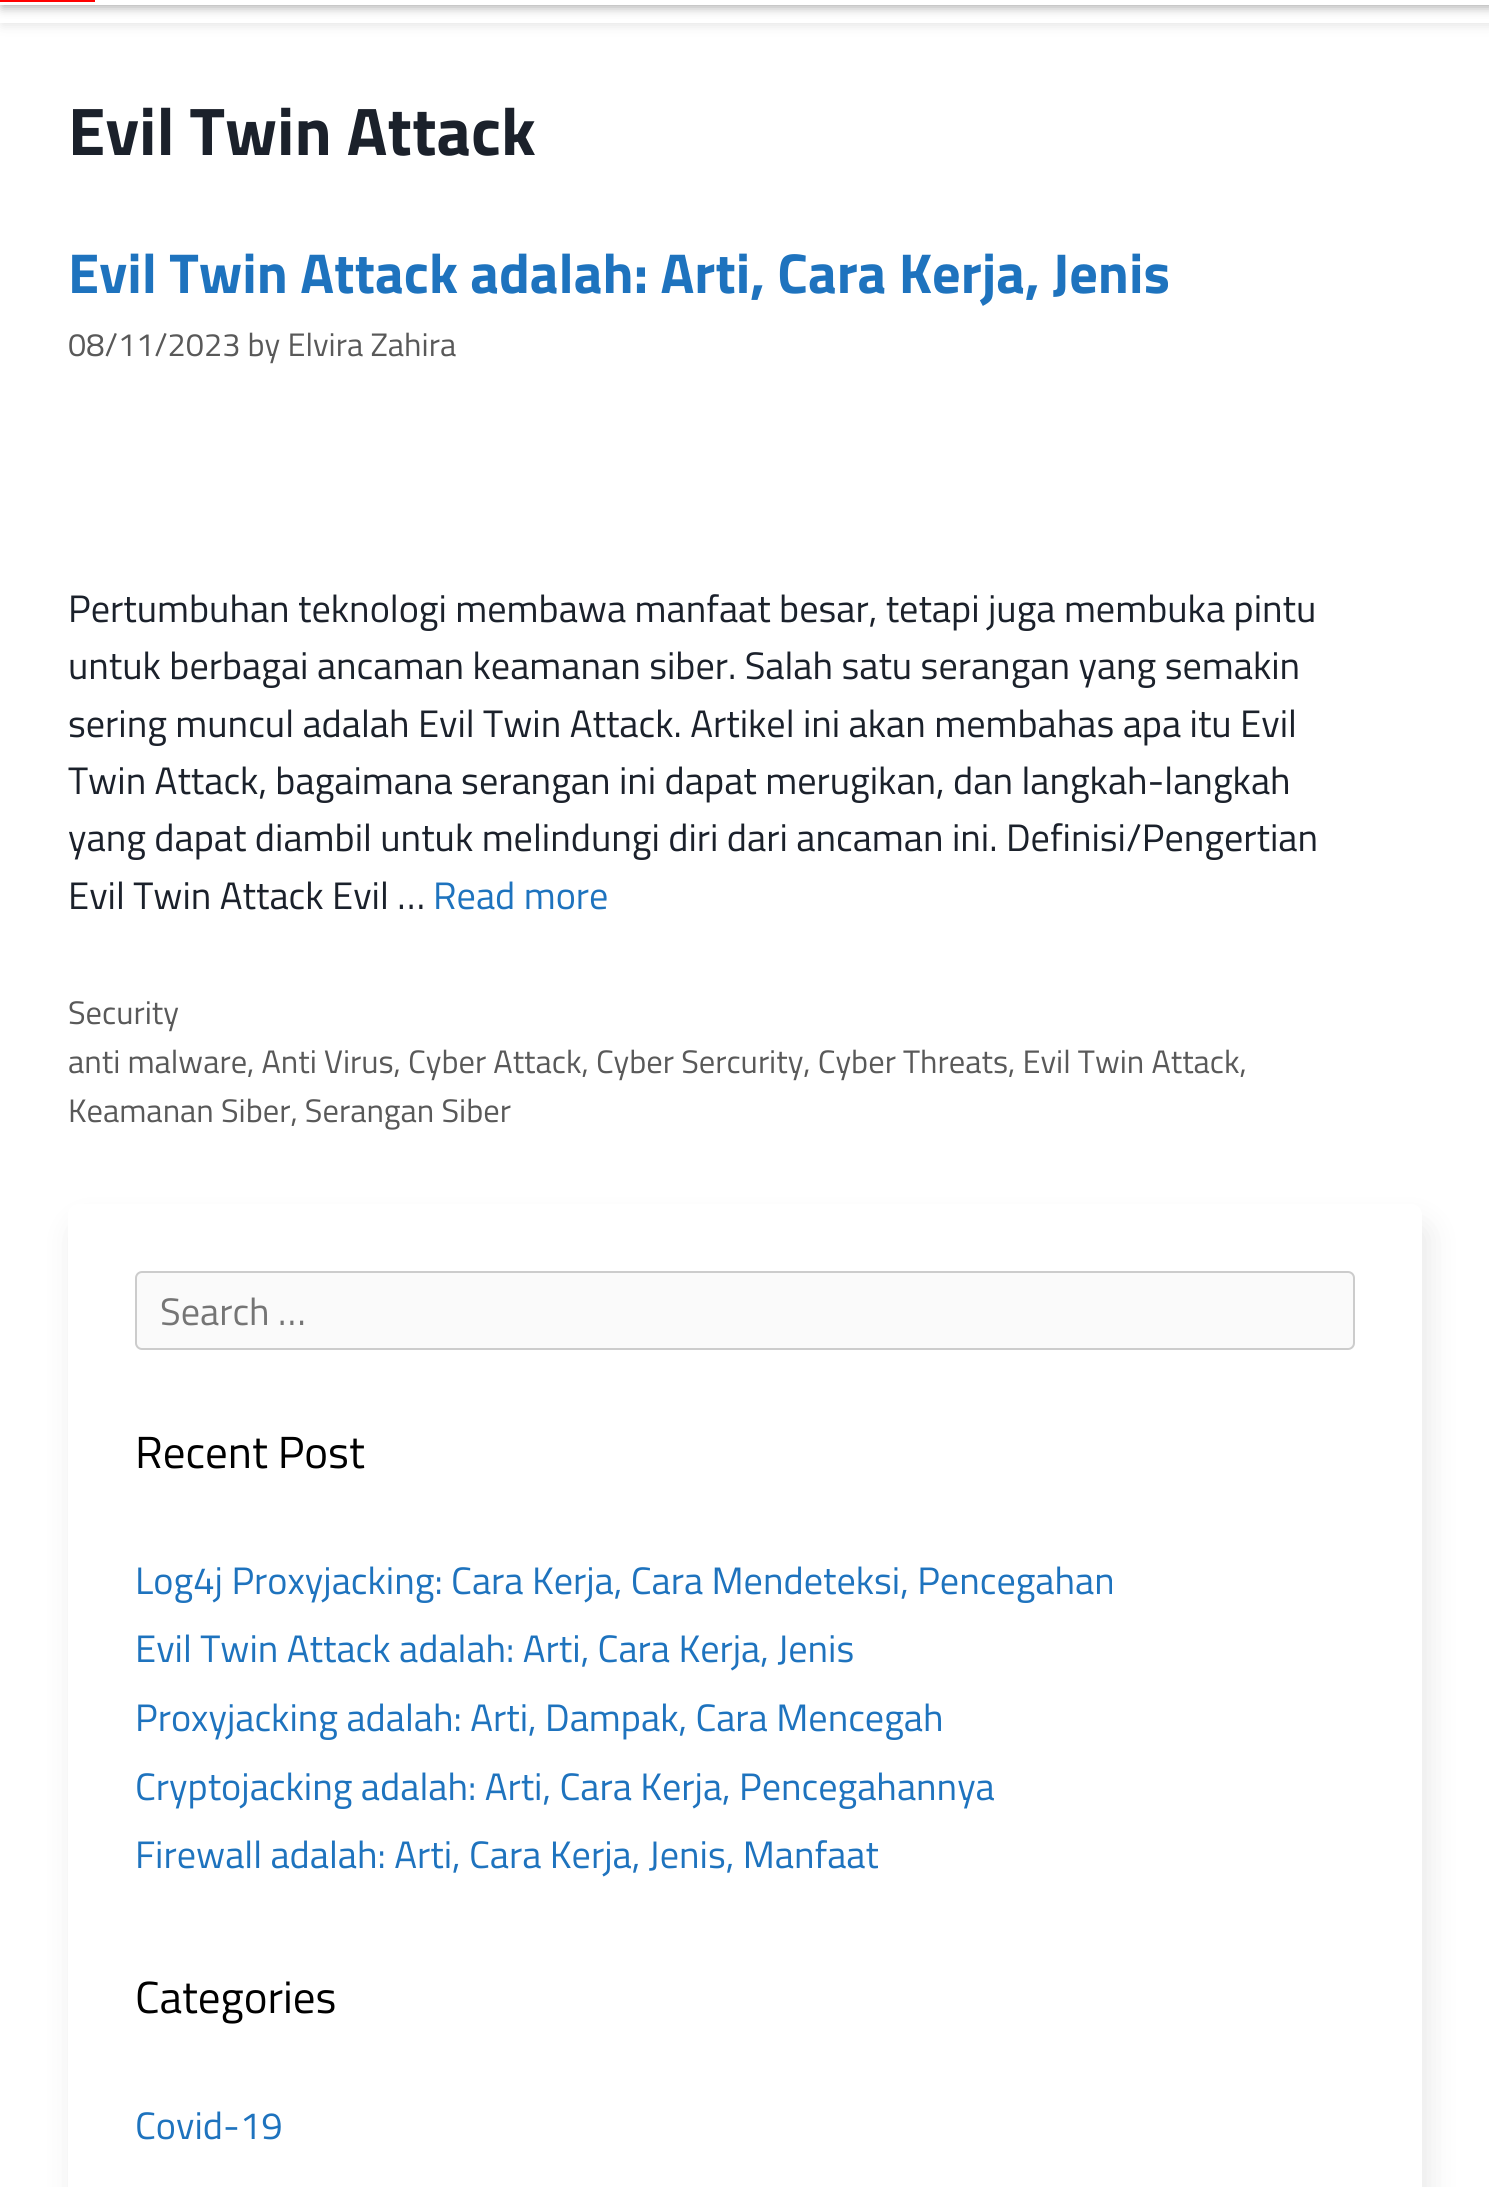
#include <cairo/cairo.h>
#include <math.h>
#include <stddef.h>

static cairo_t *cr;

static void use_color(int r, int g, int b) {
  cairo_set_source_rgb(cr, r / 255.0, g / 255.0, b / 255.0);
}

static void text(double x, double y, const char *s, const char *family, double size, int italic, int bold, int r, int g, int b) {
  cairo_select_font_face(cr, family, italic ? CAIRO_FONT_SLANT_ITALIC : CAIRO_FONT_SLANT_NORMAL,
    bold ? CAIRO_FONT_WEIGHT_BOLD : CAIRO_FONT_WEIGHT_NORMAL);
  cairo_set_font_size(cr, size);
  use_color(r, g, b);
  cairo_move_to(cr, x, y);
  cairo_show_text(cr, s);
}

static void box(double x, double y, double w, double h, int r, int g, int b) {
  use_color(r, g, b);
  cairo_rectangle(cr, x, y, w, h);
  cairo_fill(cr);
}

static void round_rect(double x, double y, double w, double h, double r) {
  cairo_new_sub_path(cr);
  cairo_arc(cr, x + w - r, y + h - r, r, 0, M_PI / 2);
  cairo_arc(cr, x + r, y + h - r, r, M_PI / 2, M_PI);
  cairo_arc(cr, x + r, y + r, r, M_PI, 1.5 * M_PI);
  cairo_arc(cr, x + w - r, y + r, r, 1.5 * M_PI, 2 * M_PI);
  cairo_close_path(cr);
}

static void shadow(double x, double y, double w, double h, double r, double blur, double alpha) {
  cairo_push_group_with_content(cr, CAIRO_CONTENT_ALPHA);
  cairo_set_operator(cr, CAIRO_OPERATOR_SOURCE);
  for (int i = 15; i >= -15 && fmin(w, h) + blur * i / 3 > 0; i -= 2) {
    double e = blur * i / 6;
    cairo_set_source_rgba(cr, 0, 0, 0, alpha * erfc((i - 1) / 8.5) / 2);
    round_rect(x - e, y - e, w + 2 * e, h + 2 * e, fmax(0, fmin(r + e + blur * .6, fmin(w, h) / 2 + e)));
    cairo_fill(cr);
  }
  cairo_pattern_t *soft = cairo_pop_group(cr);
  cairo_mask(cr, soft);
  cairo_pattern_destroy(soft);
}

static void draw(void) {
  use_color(255, 255, 255);
  cairo_paint(cr);
  cairo_save(cr);
  cairo_set_fill_rule(cr, CAIRO_FILL_RULE_EVEN_ODD);
  cairo_new_path(cr);
  cairo_move_to(cr, 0, 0);
  cairo_line_to(cr, 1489, 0);
  cairo_line_to(cr, 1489, 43);
  cairo_line_to(cr, 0, 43);
  cairo_close_path(cr);
  cairo_move_to(cr, 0, 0);
  cairo_line_to(cr, 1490, 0);
  cairo_line_to(cr, 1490, 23);
  cairo_line_to(cr, 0, 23);
  cairo_close_path(cr);
  cairo_clip(cr);
  use_color(217, 217, 217);
  shadow(2, 2, 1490, 23, 0, 5.5, 0.73);
  cairo_restore(cr);
  use_color(136, 136, 136);
  shadow(2, -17, 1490, 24, 0, 5.5, 0.73);
  box(0, 0, 1489, 5, 255, 255, 255);
  box(0, 0, 95, 2, 255, 0, 0);
  cairo_save(cr);
  cairo_set_fill_rule(cr, CAIRO_FILL_RULE_EVEN_ODD);
  cairo_new_path(cr);
  cairo_move_to(cr, 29, 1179);
  cairo_line_to(cr, 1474, 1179);
  cairo_line_to(cr, 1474, 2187);
  cairo_line_to(cr, 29, 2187);
  cairo_close_path(cr);
  cairo_move_to(cr, 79, 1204);
  cairo_line_to(cr, 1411, 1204);
  cairo_curve_to(cr, 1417, 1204, 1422, 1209, 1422, 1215);
  cairo_line_to(cr, 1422, 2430);
  cairo_curve_to(cr, 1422, 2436, 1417, 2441, 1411, 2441);
  cairo_line_to(cr, 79, 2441);
  cairo_curve_to(cr, 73, 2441, 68, 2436, 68, 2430);
  cairo_line_to(cr, 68, 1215);
  cairo_curve_to(cr, 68, 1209, 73, 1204, 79, 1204);
  cairo_close_path(cr);
  cairo_clip(cr);
  use_color(233, 233, 233);
  shadow(74, 1224, 1355, 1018, 11, 14.5, 1);
  cairo_restore(cr);
  use_color(250, 250, 250);
  round_rect(136, 1272, 1218, 77, 6);
  cairo_fill_preserve(cr);
  use_color(204, 204, 204);
  cairo_stroke(cr);
  text(68, 155, "Evil Twin Attack", "Titillium Web", 67.5, 0, 1, 27, 33, 43);
  text(68, 293, "Evil Twin Attack adalah: Arti, Cara Kerja, Jenis", "Titillium Web", 56.25, 0, 1, 30, 115, 190);
  text(68, 356, "08/11/2023 by Elvira Zahira", "Titillium Web", 32.5, 0, 0, 89, 89, 89);
  text(68, 622, "Pertumbuhan teknologi membawa manfaat besar, tetapi juga membuka pintu", "Titillium Web", 38.25, 0, 0, 27, 33, 43);
  text(68, 679, "untuk berbagai ancaman keamanan siber. Salah satu serangan yang semakin", "Titillium Web", 38.25, 0, 0, 27, 33, 43);
  text(68, 737, "sering muncul adalah Evil Twin Attack. Artikel ini akan membahas apa itu Evil", "Titillium Web", 38.25, 0, 0, 27, 33, 43);
  text(68, 794, "Twin Attack, bagaimana serangan ini dapat merugikan, dan langkah-langkah", "Titillium Web", 38.25, 0, 0, 27, 33, 43);
  text(68, 851, "yang dapat diambil untuk melindungi diri dari ancaman ini. Definisi/Pengertian", "Titillium Web", 38.25, 0, 0, 27, 33, 43);
  text(68, 909, "Evil Twin Attack Evil …", "Titillium Web", 38.25, 0, 0, 27, 33, 43);
  text(433, 909, "Read more", "Titillium Web", 38.25, 0, 0, 30, 115, 190);
  text(68, 1024, "Security", "Titillium Web", 32.5, 0, 0, 89, 89, 89);
  text(68, 1073, "anti malware, Anti Virus, Cyber Attack, Cyber Sercurity, Cyber Threats, Evil Twin Attack,", "Titillium Web", 32.5, 0, 0, 89, 89, 89);
  text(68, 1122, "Keamanan Siber, Serangan Siber", "Titillium Web", 32.5, 0, 0, 89, 89, 89);
  text(160, 1325, "Search …", "Titillium Web", 38.25, 0, 0, 117, 117, 117);
  text(135, 1468, "Recent Post", "Titillium Web", 45, 0, 0, 0, 0, 0);
  text(135, 1594, "Log4j Proxyjacking: Cara Kerja, Cara Mendeteksi, Pencegahan", "Titillium Web", 38.25, 0, 0, 30, 115, 190);
  text(135, 1662, "Evil Twin Attack adalah: Arti, Cara Kerja, Jenis", "Titillium Web", 38.25, 0, 0, 30, 115, 190);
  text(135, 1731, "Proxyjacking adalah: Arti, Dampak, Cara Mencegah", "Titillium Web", 38.25, 0, 0, 30, 115, 190);
  text(135, 1800, "Cryptojacking adalah: Arti, Cara Kerja, Pencegahannya", "Titillium Web", 38.25, 0, 0, 30, 115, 190);
  text(135, 1868, "Firewall adalah: Arti, Cara Kerja, Jenis, Manfaat", "Titillium Web", 38.25, 0, 0, 30, 115, 190);
  text(135, 2013, "Categories", "Titillium Web", 45, 0, 0, 0, 0, 0);
  text(135, 2139, "Covid-19", "Titillium Web", 38.25, 0, 0, 30, 115, 190);
}

int main(void) {
  cairo_surface_t *surface = cairo_image_surface_create(CAIRO_FORMAT_RGB24, 1489, 2187);
  cr = cairo_create(surface);
  cairo_font_options_t *options = cairo_font_options_create();
  cairo_font_options_set_hint_metrics(options, CAIRO_HINT_METRICS_OFF);
  cairo_font_options_set_hint_style(options, CAIRO_HINT_STYLE_NONE);
  cairo_set_font_options(cr, options);
  cairo_set_miter_limit(cr, 4);
  draw();
  cairo_surface_write_to_png(surface, "out.png");
  cairo_font_options_destroy(options);
  cairo_destroy(cr);
  cairo_surface_destroy(surface);
  return 0;
}
